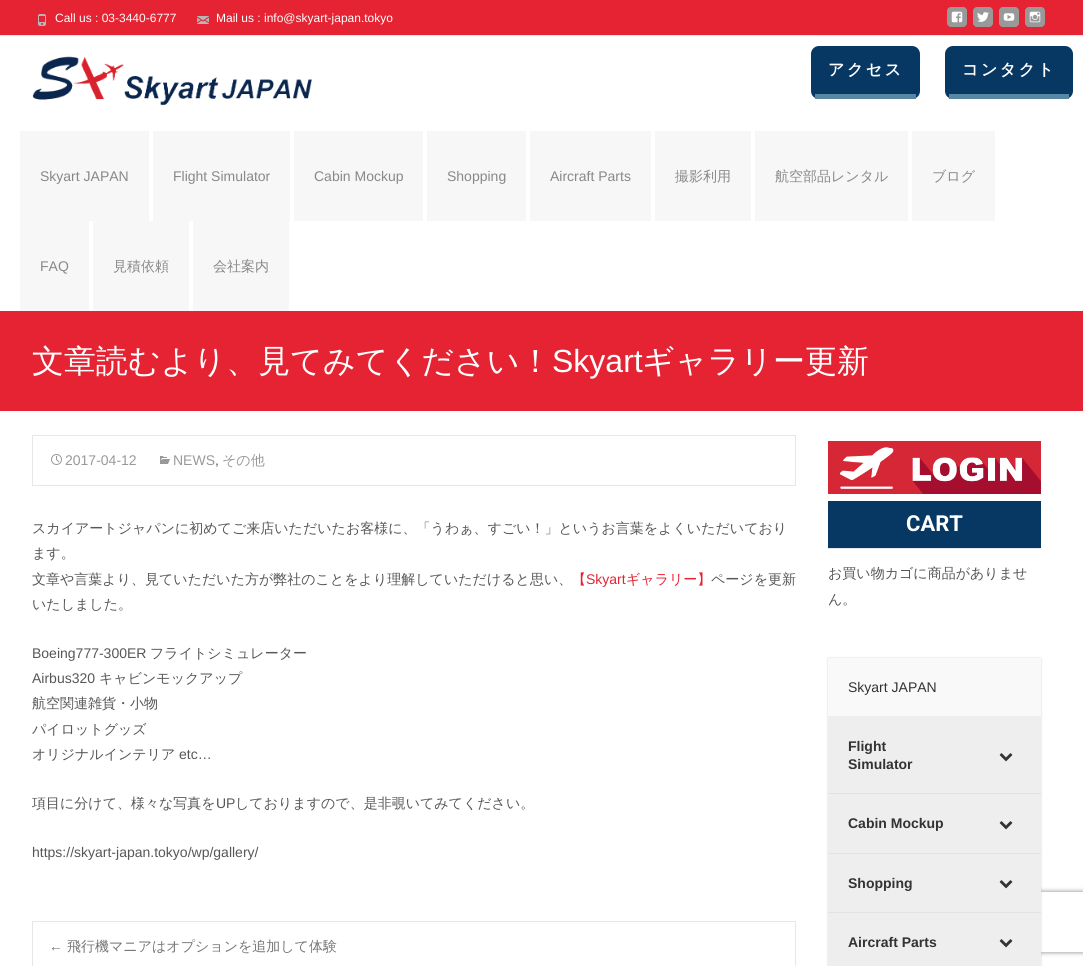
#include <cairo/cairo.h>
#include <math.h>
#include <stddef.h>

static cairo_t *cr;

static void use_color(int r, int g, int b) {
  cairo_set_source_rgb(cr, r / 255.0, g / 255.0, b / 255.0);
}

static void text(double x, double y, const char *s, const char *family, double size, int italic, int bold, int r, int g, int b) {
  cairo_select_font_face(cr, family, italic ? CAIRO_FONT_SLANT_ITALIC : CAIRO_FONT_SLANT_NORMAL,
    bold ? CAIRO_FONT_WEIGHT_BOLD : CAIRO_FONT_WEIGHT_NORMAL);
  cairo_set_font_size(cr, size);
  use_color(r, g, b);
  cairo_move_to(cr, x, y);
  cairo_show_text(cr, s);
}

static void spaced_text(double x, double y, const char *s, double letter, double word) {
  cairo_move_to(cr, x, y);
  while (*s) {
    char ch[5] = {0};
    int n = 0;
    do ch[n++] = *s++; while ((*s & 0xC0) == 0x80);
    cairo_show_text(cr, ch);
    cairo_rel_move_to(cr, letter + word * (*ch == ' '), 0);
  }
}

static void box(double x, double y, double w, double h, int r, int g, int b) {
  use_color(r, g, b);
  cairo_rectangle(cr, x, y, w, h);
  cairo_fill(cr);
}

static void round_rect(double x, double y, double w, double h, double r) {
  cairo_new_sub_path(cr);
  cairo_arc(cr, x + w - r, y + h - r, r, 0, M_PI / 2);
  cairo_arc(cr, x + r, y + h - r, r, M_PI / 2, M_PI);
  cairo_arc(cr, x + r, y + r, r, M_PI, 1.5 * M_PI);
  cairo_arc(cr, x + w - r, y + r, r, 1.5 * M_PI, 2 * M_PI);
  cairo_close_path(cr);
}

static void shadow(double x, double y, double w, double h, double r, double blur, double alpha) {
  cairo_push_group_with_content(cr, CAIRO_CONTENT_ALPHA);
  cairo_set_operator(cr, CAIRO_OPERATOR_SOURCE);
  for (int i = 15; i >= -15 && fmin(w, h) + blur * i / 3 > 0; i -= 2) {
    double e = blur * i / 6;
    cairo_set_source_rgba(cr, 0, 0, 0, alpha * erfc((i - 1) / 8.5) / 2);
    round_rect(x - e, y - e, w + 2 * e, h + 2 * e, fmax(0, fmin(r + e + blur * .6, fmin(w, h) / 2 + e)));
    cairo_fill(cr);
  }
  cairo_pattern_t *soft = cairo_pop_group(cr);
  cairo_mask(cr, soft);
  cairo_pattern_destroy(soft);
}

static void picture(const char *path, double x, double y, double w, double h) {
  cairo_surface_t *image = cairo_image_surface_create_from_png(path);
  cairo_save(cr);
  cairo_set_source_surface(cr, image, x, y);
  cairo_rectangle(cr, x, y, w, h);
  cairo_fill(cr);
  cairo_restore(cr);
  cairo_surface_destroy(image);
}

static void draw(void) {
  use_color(229, 35, 50);
  cairo_paint(cr);
  box(0, 35, 1083, 1, 231, 231, 231);
  picture("img_01.png", 38, 14, 8, 12);
  picture("img_02.png", 197, 16, 12, 8);
  use_color(153, 153, 153);
  round_rect(947, 7, 20, 20, 4);
  cairo_fill(cr);
  picture("img_03.png", 951, 11, 12, 12);
  round_rect(973, 7, 20, 20, 4);
  cairo_fill(cr);
  picture("img_04.png", 977, 12, 12, 10);
  round_rect(999, 7, 20, 20, 4);
  cairo_fill(cr);
  picture("img_05.png", 1003, 13, 12, 8);
  round_rect(1025, 7, 20, 20, 4);
  cairo_fill(cr);
  picture("img_06.png", 1029, 11, 12, 12);
  box(0, 36, 1083, 275, 255, 255, 255);
  picture("img_07.png", 32, 56, 280, 50);
  use_color(7, 55, 99);
  round_rect(811, 46, 109, 53, 8);
  cairo_fill(cr);
  box(815, 94, 101, 5, 87, 135, 163);
  use_color(7, 55, 99);
  round_rect(945, 46, 128, 53, 8);
  cairo_fill(cr);
  box(949, 94, 120, 5, 87, 135, 163);
  box(20, 131, 129, 90, 247, 247, 247);
  box(153, 131, 137, 90, 247, 247, 247);
  box(294, 131, 129, 90, 247, 247, 247);
  box(427, 131, 99, 90, 247, 247, 247);
  box(530, 131, 121, 90, 247, 247, 247);
  box(655, 131, 96, 90, 247, 247, 247);
  box(755, 131, 153, 90, 247, 247, 247);
  box(912, 131, 83, 90, 247, 247, 247);
  box(20, 221, 69, 90, 247, 247, 247);
  box(93, 221, 96, 90, 247, 247, 247);
  box(193, 221, 96, 90, 247, 247, 247);
  box(0, 411, 1083, 555, 255, 255, 255);
  cairo_rectangle(cr, 32.5, 435.5, 763, 50);
  use_color(231, 231, 231);
  cairo_set_line_width(cr, 1);
  cairo_stroke(cr);
  picture("img_08.png", 51, 454, 11, 11);
  picture("img_09.png", 160, 456, 10, 8);
  cairo_rectangle(cr, 32.5, 921.5, 763, 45);
  cairo_stroke(cr);
  picture("img_10.png", 828, 441, 213, 53);
  box(828, 501, 213, 47, 7, 55, 99);
  box(828, 548, 213, 1, 231, 231, 231);
  use_color(0, 0, 0);
  shadow(828, 658, 213, 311, 0, 1, 0.17);
  box(828, 658, 213, 58, 249, 249, 249);
  box(828, 716, 213, 1, 237, 237, 237);
  box(828, 717, 213, 76, 238, 238, 238);
  box(828, 793, 213, 1, 226, 226, 226);
  picture("img_11.png", 999, 753, 14, 9);
  box(828, 794, 213, 59, 238, 238, 238);
  box(828, 853, 213, 1, 226, 226, 226);
  picture("img_11.png", 999, 821, 14, 9);
  cairo_save(cr);
  cairo_set_fill_rule(cr, CAIRO_FILL_RULE_EVEN_ODD);
  cairo_new_path(cr);
  cairo_move_to(cr, 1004, 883);
  cairo_line_to(cr, 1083, 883);
  cairo_line_to(cr, 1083, 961);
  cairo_line_to(cr, 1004, 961);
  cairo_close_path(cr);
  cairo_move_to(cr, 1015, 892);
  cairo_line_to(cr, 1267, 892);
  cairo_curve_to(cr, 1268, 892, 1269, 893, 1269, 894);
  cairo_line_to(cr, 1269, 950);
  cairo_curve_to(cr, 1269, 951, 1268, 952, 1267, 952);
  cairo_line_to(cr, 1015, 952);
  cairo_curve_to(cr, 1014, 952, 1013, 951, 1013, 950);
  cairo_line_to(cr, 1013, 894);
  cairo_curve_to(cr, 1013, 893, 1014, 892, 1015, 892);
  cairo_close_path(cr);
  cairo_clip(cr);
  use_color(128, 128, 128);
  shadow(1013, 892, 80, 60, 2, 2.5, 1);
  cairo_restore(cr);
  box(828, 854, 213, 58, 238, 238, 238);
  box(828, 912, 213, 1, 226, 226, 226);
  picture("img_11.png", 999, 880, 14, 9);
  box(828, 913, 213, 53, 238, 238, 238);
  picture("img_11.png", 999, 939, 14, 9);
  text(55, 22, "Call us : 03-3440-6777", "Liberation Sans", 12, 0, 0, 255, 255, 255);
  text(216, 22, "Mail us : info@skyart-japan.tokyo", "Liberation Sans", 12, 0, 0, 255, 255, 255);
  cairo_select_font_face(cr, "WenQuanYi Zen Hei", CAIRO_FONT_SLANT_NORMAL, CAIRO_FONT_WEIGHT_BOLD);
  cairo_set_font_size(cr, 16);
  spaced_text(828, 75, "アクセス", 2.5, 0);
  spaced_text(962, 75, "コンタクト", 2.5, 0);
  text(40, 181, "Skyart JAPAN", "Liberation Sans", 14, 0, 0, 136, 136, 136);
  text(173, 181, "Flight Simulator", "Liberation Sans", 14, 0, 0, 136, 136, 136);
  text(314, 181, "Cabin Mockup", "Liberation Sans", 14, 0, 0, 136, 136, 136);
  text(447, 181, "Shopping", "Liberation Sans", 14, 0, 0, 136, 136, 136);
  text(550, 181, "Aircraft Parts", "Liberation Sans", 14, 0, 0, 136, 136, 136);
  text(675, 181, "撮影利用", "WenQuanYi Zen Hei Medium", 14, 0, 0, 136, 136, 136);
  text(775, 181, "航空部品レンタル", "WenQuanYi Zen Hei Medium", 14, 0, 0, 136, 136, 136);
  text(932, 181, "ブログ", "WenQuanYi Zen Hei Medium", 14, 0, 0, 136, 136, 136);
  text(40, 271, "FAQ", "Liberation Sans", 14, 0, 0, 136, 136, 136);
  text(113, 271, "見積依頼", "WenQuanYi Zen Hei Medium", 14, 0, 0, 136, 136, 136);
  text(213, 271, "会社案内", "WenQuanYi Zen Hei Medium", 14, 0, 0, 136, 136, 136);
  text(32, 372, "文章読むより、見てみてください！", "WenQuanYi Zen Hei Medium", 32, 0, 0, 255, 255, 255);
  text(552, 372, "Skyart", "Liberation Sans", 32, 0, 0, 255, 255, 255);
  text(642, 372, "ギャラリー更新", "WenQuanYi Zen Hei Medium", 32, 0, 0, 255, 255, 255);
  text(65, 465, "2017-04-12", "Liberation Sans", 14, 0, 0, 153, 153, 153);
  text(173, 465, "NEWS", "Liberation Sans", 14, 0, 0, 153, 153, 153);
  text(215, 465, ",", "Liberation Sans", 14, 0, 0, 87, 87, 87);
  text(222, 465, "その他", "WenQuanYi Zen Hei Medium", 14, 0, 0, 153, 153, 153);
  text(32, 533, "スカイアートジャパンに初めてご来店いただいたお客様に、「うわぁ、すごい！」というお言葉をよくいただいており", "WenQuanYi Zen Hei Medium", 14, 0, 0, 87, 87, 87);
  text(32, 558, "ます。", "WenQuanYi Zen Hei Medium", 14, 0, 0, 87, 87, 87);
  text(32, 584, "文章や言葉より、見ていただいた方が弊社のことをより理解していただけると思い、", "WenQuanYi Zen Hei Medium", 14, 0, 0, 87, 87, 87);
  text(572, 584, "【", "WenQuanYi Zen Hei Medium", 14, 0, 0, 229, 35, 50);
  text(586, 584, "Skyart", "Liberation Sans", 14, 0, 0, 229, 35, 50);
  text(626, 584, "ギャラリー】", "WenQuanYi Zen Hei Medium", 14, 0, 0, 229, 35, 50);
  text(711, 584, "ページを更新", "WenQuanYi Zen Hei Medium", 14, 0, 0, 87, 87, 87);
  text(32, 609, "いたしました。", "WenQuanYi Zen Hei Medium", 14, 0, 0, 87, 87, 87);
  text(32, 658, "Boeing777-300ER", "Liberation Sans", 14, 0, 0, 87, 87, 87);
  text(150, 658, "フライトシミュレーター", "WenQuanYi Zen Hei Medium", 14, 0, 0, 87, 87, 87);
  text(32, 683, "Airbus320", "Liberation Sans", 14, 0, 0, 87, 87, 87);
  text(99, 683, "キャビンモックアップ", "WenQuanYi Zen Hei Medium", 14, 0, 0, 87, 87, 87);
  text(32, 708, "航空関連雑貨・小物", "WenQuanYi Zen Hei Medium", 14, 0, 0, 87, 87, 87);
  text(32, 734, "パイロットグッズ", "WenQuanYi Zen Hei Medium", 14, 0, 0, 87, 87, 87);
  text(32, 759, "オリジナルインテリア", "WenQuanYi Zen Hei Medium", 14, 0, 0, 87, 87, 87);
  text(179, 759, "etc…", "Liberation Sans", 14, 0, 0, 87, 87, 87);
  text(32, 808, "項目に分けて、様々な写真を", "WenQuanYi Zen Hei Medium", 14, 0, 0, 87, 87, 87);
  text(216, 808, "UP", "Liberation Sans", 14, 0, 0, 87, 87, 87);
  text(235, 808, "しておりますので、是非覗いてみてください。", "WenQuanYi Zen Hei Medium", 14, 0, 0, 87, 87, 87);
  text(32, 857, "https://skyart-japan.tokyo/wp/gallery/", "Liberation Sans", 14, 0, 0, 87, 87, 87);
  text(49, 951, "←", "Liberation Sans", 14, 0, 0, 119, 119, 119);
  text(67, 951, "飛行機マニアはオプションを追加して体験", "WenQuanYi Zen Hei Medium", 14, 0, 0, 119, 119, 119);
  text(906, 531, "CART", "Roboto", 22, 0, 1, 255, 255, 255);
  text(828, 578, "お買い物カゴに商品がありませ", "WenQuanYi Zen Hei Medium", 14, 0, 0, 87, 87, 87);
  text(828, 604, "ん。", "WenQuanYi Zen Hei Medium", 14, 0, 0, 87, 87, 87);
  text(848, 692, "Skyart JAPAN", "Liberation Sans", 14, 0, 0, 51, 51, 51);
  text(848, 751, "Flight", "Liberation Sans", 14, 0, 1, 51, 51, 51);
  text(848, 769, "Simulator", "Liberation Sans", 14, 0, 1, 51, 51, 51);
  text(848, 828, "Cabin Mockup", "Liberation Sans", 14, 0, 1, 51, 51, 51);
  text(848, 888, "Shopping", "Liberation Sans", 14, 0, 1, 51, 51, 51);
  text(848, 947, "Aircraft Parts", "Liberation Sans", 14, 0, 1, 51, 51, 51);
}

int main(void) {
  cairo_surface_t *surface = cairo_image_surface_create(CAIRO_FORMAT_RGB24, 1083, 966);
  cr = cairo_create(surface);
  cairo_font_options_t *options = cairo_font_options_create();
  cairo_font_options_set_hint_metrics(options, CAIRO_HINT_METRICS_OFF);
  cairo_font_options_set_hint_style(options, CAIRO_HINT_STYLE_NONE);
  cairo_set_font_options(cr, options);
  cairo_set_miter_limit(cr, 4);
  draw();
  cairo_surface_write_to_png(surface, "out.png");
  cairo_font_options_destroy(options);
  cairo_destroy(cr);
  cairo_surface_destroy(surface);
  return 0;
}
